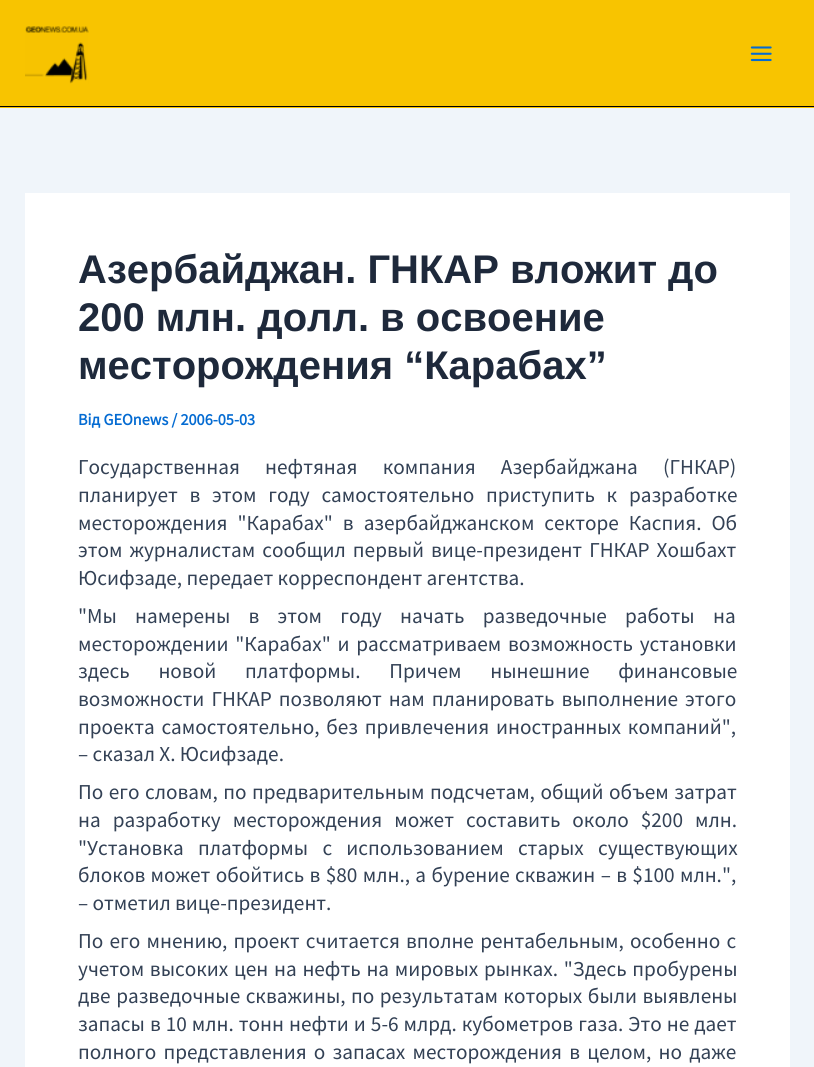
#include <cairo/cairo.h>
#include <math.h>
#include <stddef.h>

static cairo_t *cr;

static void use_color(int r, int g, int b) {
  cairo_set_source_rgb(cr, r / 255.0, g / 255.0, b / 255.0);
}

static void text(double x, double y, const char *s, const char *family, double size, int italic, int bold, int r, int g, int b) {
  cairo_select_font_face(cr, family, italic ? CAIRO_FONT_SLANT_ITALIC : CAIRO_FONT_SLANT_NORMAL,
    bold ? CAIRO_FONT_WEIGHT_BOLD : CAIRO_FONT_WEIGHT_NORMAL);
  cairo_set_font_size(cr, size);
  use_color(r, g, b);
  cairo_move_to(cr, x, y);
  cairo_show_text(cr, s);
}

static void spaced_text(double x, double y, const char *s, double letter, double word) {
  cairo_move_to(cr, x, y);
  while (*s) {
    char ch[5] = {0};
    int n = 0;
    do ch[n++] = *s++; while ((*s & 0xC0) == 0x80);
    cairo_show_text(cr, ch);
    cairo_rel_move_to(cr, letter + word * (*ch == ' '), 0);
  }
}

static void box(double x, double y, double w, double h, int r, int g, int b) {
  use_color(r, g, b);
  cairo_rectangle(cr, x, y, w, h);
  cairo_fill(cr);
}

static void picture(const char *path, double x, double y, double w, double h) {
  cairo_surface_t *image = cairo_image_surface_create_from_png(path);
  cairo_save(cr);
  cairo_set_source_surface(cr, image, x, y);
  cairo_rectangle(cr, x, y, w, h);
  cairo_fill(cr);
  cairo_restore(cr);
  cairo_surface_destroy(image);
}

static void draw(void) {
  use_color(240, 245, 250);
  cairo_paint(cr);
  box(0, 0, 814, 108, 248, 196, 0);
  box(0, 106, 814, 1, 0, 0, 0);
  picture("img_01.png", 25, 26, 64, 58);
  picture("img_02.png", 750, 46, 22, 16);
  box(25, 193, 765, 874, 255, 255, 255);
  text(78, 283, "Азербайджан. ГНКАР вложит до", "Liberation Sans", 40, 0, 1, 30, 41, 59);
  text(78, 331, "200 млн. долл. в освоение", "Liberation Sans", 40, 0, 1, 30, 41, 59);
  text(78, 379, "месторождения “Карабах”", "Liberation Sans", 40, 0, 1, 30, 41, 59);
  text(78, 425, "Від GEOnews / 2006-05-03", "Source Sans Pro", 16.25, 0, 1, 4, 107, 210);
  cairo_select_font_face(cr, "Source Sans Pro", CAIRO_FONT_SLANT_NORMAL, CAIRO_FONT_WEIGHT_NORMAL);
  cairo_set_font_size(cr, 21.25);
  use_color(51, 65, 85);
  spaced_text(78, 474, "Государственная нефтяная компания Азербайджана (ГНКАР)", 0, 21);
  spaced_text(78, 502, "планирует в этом году самостоятельно приступить к разработке", 0, 7.5);
  spaced_text(78, 530, "месторождения \"Карабах\" в азербайджанском секторе Каспия. Об", 0, 5.75);
  spaced_text(78, 557, "этом журналистам сообщил первый вице-президент ГНКАР Хошбахт", 0, 2.75);
  text(78, 585, "Юсифзаде, передает корреспондент агентства.", "Source Sans Pro", 21.25, 0, 0, 51, 65, 85);
  spaced_text(78, 623, "\"Мы намерены в этом году начать разведочные работы на", 0, 14);
  spaced_text(78, 651, "месторождении \"Карабах\" и рассматриваем возможность установки", 0, 2.5);
  spaced_text(78, 678, "здесь новой платформы. Причем нынешние финансовые", 0, 24.5);
  spaced_text(78, 706, "возможности ГНКАР позволяют нам планировать выполнение этого", 0, 2.75);
  spaced_text(78, 734, "проекта самостоятельно, без привлечения иностранных компаний\",", 0, 2.5);
  text(78, 761, "– сказал Х. Юсифзаде.", "Source Sans Pro", 21.25, 0, 0, 51, 65, 85);
  spaced_text(78, 799, "По его словам, по предварительным подсчетам, общий объем затрат", 0, 1.25);
  spaced_text(78, 827, "на разработку месторождения может составить около $200 млн.", 0, 7.75);
  spaced_text(78, 855, "\"Установка платформы с использованием старых существующих", 0, 10);
  spaced_text(78, 882, "блоков может обойтись в $80 млн., а бурение скважин – в $100 млн.\",", 0, 1.1);
  text(78, 910, "– отметил вице-президент.", "Source Sans Pro", 21.25, 0, 0, 51, 65, 85);
  spaced_text(78, 948, "По его мнению, проект считается вполне рентабельным, особенно с", 0, 2);
  spaced_text(78, 976, "учетом высоких цен на нефть на мировых рынках. \"Здесь пробурены", 0, 1.5);
  spaced_text(78, 1003, "две разведочные скважины, по результатам которых были выявлены", 0, 1.25);
  spaced_text(78, 1031, "запасы в 10 млн. тонн нефти и 5-6 млрд. кубометров газа. Это не дает", 0, 0.75);
  spaced_text(78, 1059, "полного представления о запасах месторождения в целом, но даже", 0, 3);
}

int main(void) {
  cairo_surface_t *surface = cairo_image_surface_create(CAIRO_FORMAT_RGB24, 814, 1067);
  cr = cairo_create(surface);
  cairo_font_options_t *options = cairo_font_options_create();
  cairo_font_options_set_hint_metrics(options, CAIRO_HINT_METRICS_OFF);
  cairo_font_options_set_hint_style(options, CAIRO_HINT_STYLE_NONE);
  cairo_set_font_options(cr, options);
  cairo_set_miter_limit(cr, 4);
  draw();
  cairo_surface_write_to_png(surface, "out.png");
  cairo_font_options_destroy(options);
  cairo_destroy(cr);
  cairo_surface_destroy(surface);
  return 0;
}
